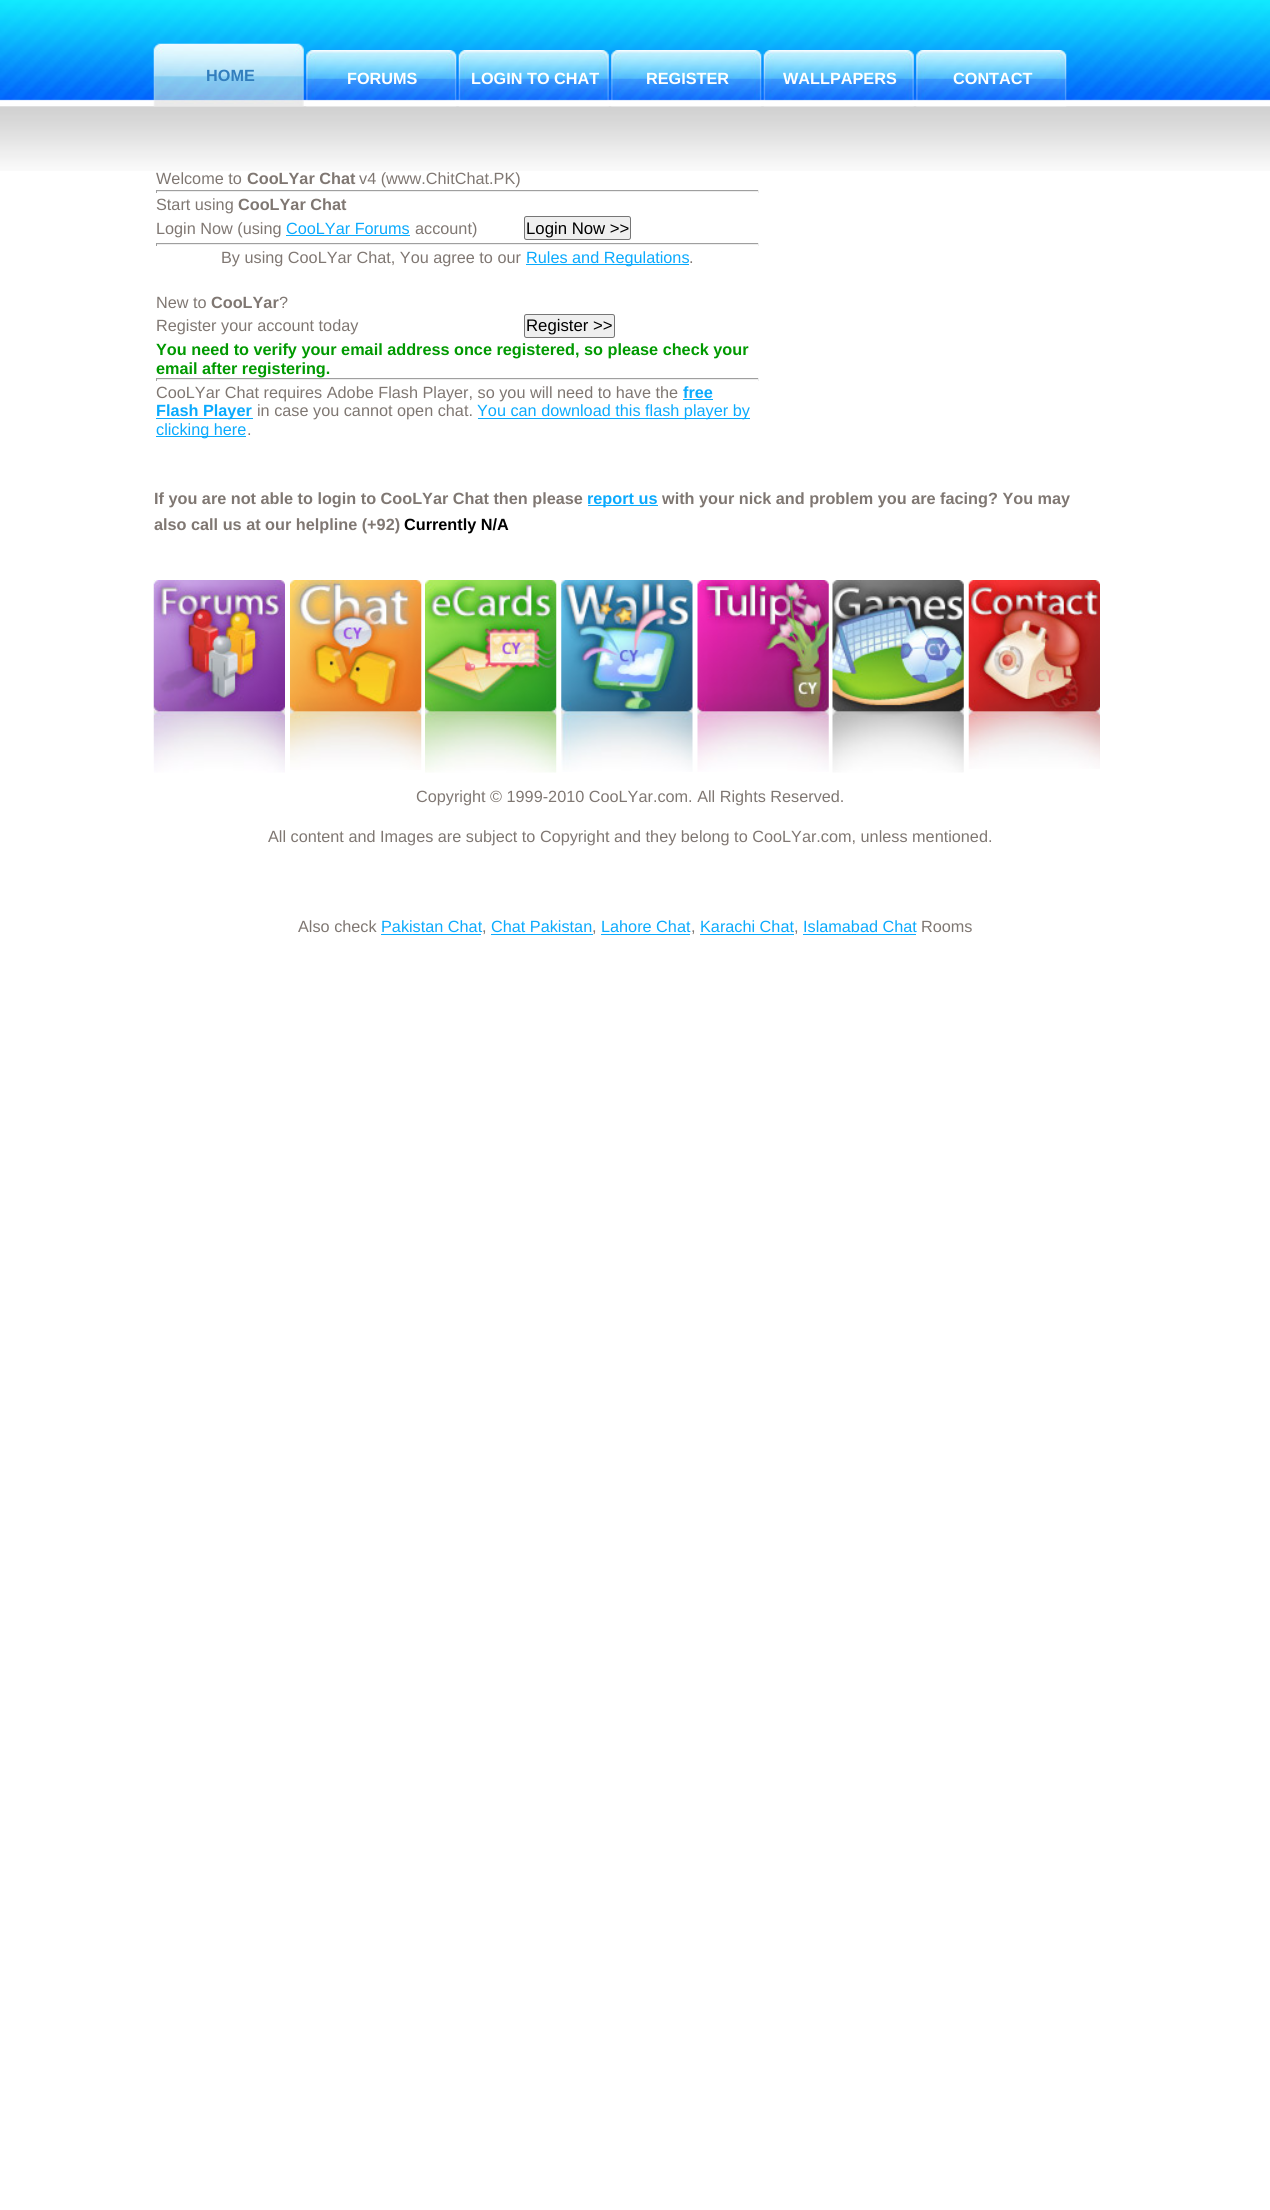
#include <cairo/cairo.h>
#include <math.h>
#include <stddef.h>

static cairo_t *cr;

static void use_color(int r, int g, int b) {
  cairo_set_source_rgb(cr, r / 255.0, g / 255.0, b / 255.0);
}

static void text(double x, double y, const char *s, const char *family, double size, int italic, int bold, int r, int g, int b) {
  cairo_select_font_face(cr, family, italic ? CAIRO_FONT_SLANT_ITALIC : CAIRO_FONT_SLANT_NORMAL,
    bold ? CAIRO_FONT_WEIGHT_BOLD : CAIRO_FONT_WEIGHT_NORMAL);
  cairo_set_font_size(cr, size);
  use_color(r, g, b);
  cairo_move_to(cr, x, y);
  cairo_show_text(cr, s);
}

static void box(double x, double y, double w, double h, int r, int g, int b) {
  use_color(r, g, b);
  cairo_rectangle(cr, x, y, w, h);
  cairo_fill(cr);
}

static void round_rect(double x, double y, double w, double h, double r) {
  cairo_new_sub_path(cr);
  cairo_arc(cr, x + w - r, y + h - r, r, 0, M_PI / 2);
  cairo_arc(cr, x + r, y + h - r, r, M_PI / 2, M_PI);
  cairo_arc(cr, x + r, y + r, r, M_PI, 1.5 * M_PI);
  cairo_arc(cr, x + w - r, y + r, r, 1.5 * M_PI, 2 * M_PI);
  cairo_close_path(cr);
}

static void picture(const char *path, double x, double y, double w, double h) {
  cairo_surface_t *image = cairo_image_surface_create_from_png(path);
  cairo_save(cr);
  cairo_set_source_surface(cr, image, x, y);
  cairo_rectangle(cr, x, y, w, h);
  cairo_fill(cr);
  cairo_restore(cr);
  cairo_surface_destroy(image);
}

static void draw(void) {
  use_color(255, 255, 255);
  cairo_paint(cr);
  picture("img_01.png", 0, 0, 1270, 171);
  picture("img_02.png", 153, 43, 151, 64);
  picture("img_03.png", 306, 50, 151, 57);
  picture("img_04.png", 458, 50, 151, 57);
  picture("img_05.png", 611, 50, 151, 57);
  picture("img_06.png", 763, 50, 151, 57);
  picture("img_07.png", 916, 50, 151, 57);
  box(156, 190, 603, 1, 159, 159, 159);
  box(758, 190, 1, 3, 238, 238, 238);
  box(156, 191, 603, 1, 238, 238, 238);
  box(156, 190, 1, 3, 159, 159, 159);
  box(286, 235, 124, 1, 10, 170, 253);
  use_color(239, 239, 239);
  round_rect(524.5, 216.5, 106, 23, 2);
  cairo_fill_preserve(cr);
  use_color(118, 118, 118);
  cairo_set_line_width(cr, 1);
  cairo_stroke(cr);
  box(156, 243, 603, 1, 159, 159, 159);
  box(758, 243, 1, 3, 238, 238, 238);
  box(156, 244, 603, 1, 238, 238, 238);
  box(156, 243, 1, 3, 159, 159, 159);
  box(526, 264, 163, 1, 10, 170, 253);
  use_color(239, 239, 239);
  round_rect(524.5, 314.5, 90, 23, 2);
  cairo_fill_preserve(cr);
  use_color(118, 118, 118);
  cairo_stroke(cr);
  box(156, 378, 603, 1, 159, 159, 159);
  box(758, 378, 1, 3, 238, 238, 238);
  box(156, 379, 603, 1, 238, 238, 238);
  box(156, 378, 1, 3, 159, 159, 159);
  box(683, 399, 30, 1, 10, 170, 253);
  box(156, 418, 97, 1, 10, 170, 253);
  box(478, 418, 272, 1, 10, 170, 253);
  box(156, 436, 90, 1, 10, 170, 253);
  box(588, 505, 70, 1, 10, 170, 253);
  picture("img_08.png", 153, 580, 132, 193);
  picture("img_09.png", 290, 580, 132, 190);
  picture("img_10.png", 425, 580, 132, 193);
  picture("img_11.png", 561, 580, 132, 192);
  picture("img_12.png", 697, 580, 132, 192);
  picture("img_13.png", 832, 580, 132, 193);
  picture("img_14.png", 968, 580, 132, 189);
  box(381, 934, 100, 1, 10, 170, 253);
  box(491, 934, 102, 1, 10, 170, 253);
  box(601, 934, 89, 1, 10, 170, 253);
  box(700, 934, 94, 1, 10, 170, 253);
  box(803, 934, 113, 1, 10, 170, 253);
  text(206, 81, "HOME", "Liberation Sans", 16.25, 0, 1, 50, 126, 190);
  text(347, 84, "FORUMS", "Liberation Sans", 16.25, 0, 1, 255, 255, 255);
  text(471, 84, "LOGIN TO CHAT", "Liberation Sans", 16.25, 0, 1, 255, 255, 255);
  text(646, 84, "REGISTER", "Liberation Sans", 16.25, 0, 1, 255, 255, 255);
  text(783, 84, "WALLPAPERS", "Liberation Sans", 16.25, 0, 1, 255, 255, 255);
  text(953, 84, "CONTACT", "Liberation Sans", 16.25, 0, 1, 255, 255, 255);
  text(156, 184, "Welcome to", "Liberation Sans", 16.25, 0, 0, 127, 119, 114);
  text(247, 184, "CooLYar Chat", "Liberation Sans", 16.25, 0, 1, 127, 119, 114);
  text(359, 184, "v4 (www.ChitChat.PK)", "Liberation Sans", 16.25, 0, 0, 127, 119, 114);
  text(156, 210, "Start using", "Liberation Sans", 16.25, 0, 0, 127, 119, 114);
  text(238, 210, "CooLYar Chat", "Liberation Sans", 16.25, 0, 1, 127, 119, 114);
  text(156, 234, "Login Now (using", "Liberation Sans", 16.25, 0, 0, 127, 119, 114);
  text(286, 234, "CooLYar Forums", "Liberation Sans", 16.25, 0, 0, 10, 170, 253);
  text(415, 234, "account)", "Liberation Sans", 16.25, 0, 0, 127, 119, 114);
  text(526, 234, "Login Now >>", "Liberation Sans", 16.75, 0, 0, 0, 0, 0);
  text(221, 263, "By using CooLYar Chat, You agree to our", "Liberation Sans", 16.25, 0, 0, 127, 119, 114);
  text(526, 263, "Rules and Regulations", "Liberation Sans", 16.25, 0, 0, 10, 170, 253);
  text(689, 263, ".", "Liberation Sans", 16.25, 0, 0, 127, 119, 114);
  text(156, 308, "New to", "Liberation Sans", 16.25, 0, 0, 127, 119, 114);
  text(211, 308, "CooLYar", "Liberation Sans", 16.25, 0, 1, 127, 119, 114);
  text(279, 308, "?", "Liberation Sans", 16.25, 0, 0, 127, 119, 114);
  text(156, 331, "Register your account today", "Liberation Sans", 16.25, 0, 0, 127, 119, 114);
  text(526, 331, "Register >>", "Liberation Sans", 16.75, 0, 0, 0, 0, 0);
  text(156, 355, "You need to verify your email address once registered, so please check your", "Liberation Sans", 16.25, 0, 1, 0, 153, 0);
  text(156, 374, "email after registering.", "Liberation Sans", 16.25, 0, 1, 0, 153, 0);
  text(156, 398, "CooLYar Chat requires Adobe Flash Player, so you will need to have the", "Liberation Sans", 16.25, 0, 0, 127, 119, 114);
  text(683, 398, "free", "Liberation Sans", 16.25, 0, 1, 10, 170, 253);
  text(156, 416, "Flash Player", "Liberation Sans", 16.25, 0, 1, 10, 170, 253);
  text(257, 416, "in case you cannot open chat.", "Liberation Sans", 16.25, 0, 0, 127, 119, 114);
  text(477, 416, "You can download this flash player by", "Liberation Sans", 16.25, 0, 0, 10, 170, 253);
  text(156, 435, "clicking here", "Liberation Sans", 16.25, 0, 0, 10, 170, 253);
  text(247, 435, ".", "Liberation Sans", 16.25, 0, 0, 127, 119, 114);
  text(154, 504, "If you are not able to login to CooLYar Chat then please", "Liberation Sans", 16.25, 0, 1, 127, 119, 114);
  text(587, 504, "report us", "Liberation Sans", 16.25, 0, 1, 10, 170, 253);
  text(662, 504, "with your nick and problem you are facing? You may", "Liberation Sans", 16.25, 0, 1, 127, 119, 114);
  text(154, 530, "also call us at our helpline (+92)", "Liberation Sans", 16.25, 0, 1, 127, 119, 114);
  text(404, 530, "Currently N/A", "Liberation Sans", 16.25, 0, 1, 0, 0, 0);
  text(416, 802, "Copyright © 1999-2010 CooLYar.com. All Rights Reserved.", "Liberation Sans", 16.25, 0, 0, 127, 119, 114);
  text(268, 842, "All content and Images are subject to Copyright and they belong to CooLYar.com, unless mentioned.", "Liberation Sans", 16.25, 0, 0, 127, 119, 114);
  text(298, 932, "Also check", "Liberation Sans", 16.25, 0, 0, 127, 119, 114);
  text(381, 932, "Pakistan Chat", "Liberation Sans", 16.25, 0, 0, 10, 170, 253);
  text(482, 932, ",", "Liberation Sans", 16.25, 0, 0, 127, 119, 114);
  text(491, 932, "Chat Pakistan", "Liberation Sans", 16.25, 0, 0, 10, 170, 253);
  text(592, 932, ",", "Liberation Sans", 16.25, 0, 0, 127, 119, 114);
  text(601, 932, "Lahore Chat", "Liberation Sans", 16.25, 0, 0, 10, 170, 253);
  text(691, 932, ",", "Liberation Sans", 16.25, 0, 0, 127, 119, 114);
  text(700, 932, "Karachi Chat", "Liberation Sans", 16.25, 0, 0, 10, 170, 253);
  text(794, 932, ",", "Liberation Sans", 16.25, 0, 0, 127, 119, 114);
  text(803, 932, "Islamabad Chat", "Liberation Sans", 16.25, 0, 0, 10, 170, 253);
  text(921, 932, "Rooms", "Liberation Sans", 16.25, 0, 0, 127, 119, 114);
}

int main(void) {
  cairo_surface_t *surface = cairo_image_surface_create(CAIRO_FORMAT_RGB24, 1270, 2210);
  cr = cairo_create(surface);
  cairo_font_options_t *options = cairo_font_options_create();
  cairo_font_options_set_hint_metrics(options, CAIRO_HINT_METRICS_OFF);
  cairo_font_options_set_hint_style(options, CAIRO_HINT_STYLE_NONE);
  cairo_set_font_options(cr, options);
  cairo_set_miter_limit(cr, 4);
  draw();
  cairo_surface_write_to_png(surface, "out.png");
  cairo_font_options_destroy(options);
  cairo_destroy(cr);
  cairo_surface_destroy(surface);
  return 0;
}
